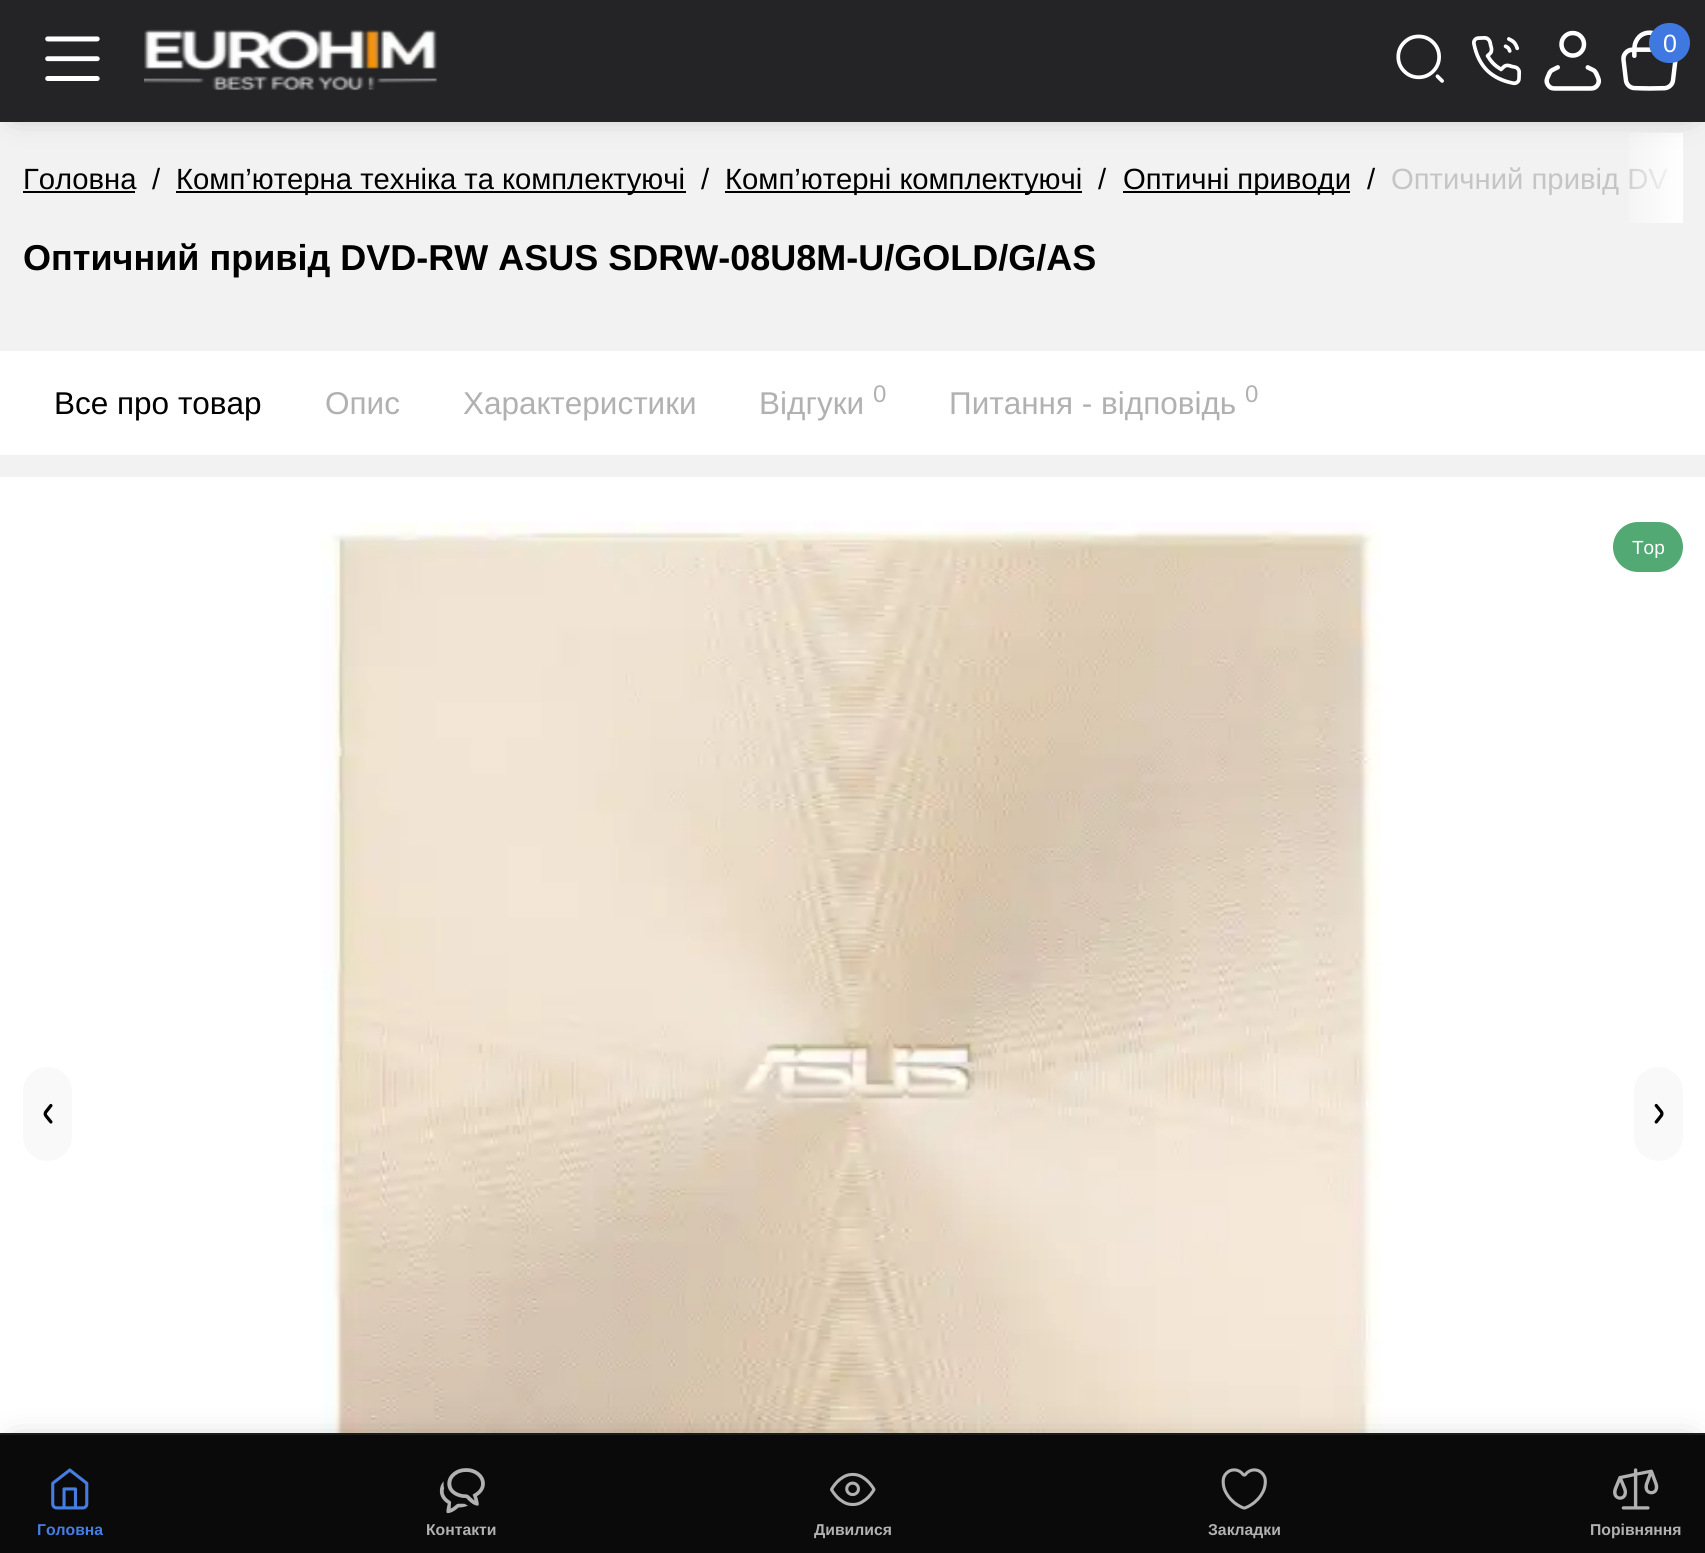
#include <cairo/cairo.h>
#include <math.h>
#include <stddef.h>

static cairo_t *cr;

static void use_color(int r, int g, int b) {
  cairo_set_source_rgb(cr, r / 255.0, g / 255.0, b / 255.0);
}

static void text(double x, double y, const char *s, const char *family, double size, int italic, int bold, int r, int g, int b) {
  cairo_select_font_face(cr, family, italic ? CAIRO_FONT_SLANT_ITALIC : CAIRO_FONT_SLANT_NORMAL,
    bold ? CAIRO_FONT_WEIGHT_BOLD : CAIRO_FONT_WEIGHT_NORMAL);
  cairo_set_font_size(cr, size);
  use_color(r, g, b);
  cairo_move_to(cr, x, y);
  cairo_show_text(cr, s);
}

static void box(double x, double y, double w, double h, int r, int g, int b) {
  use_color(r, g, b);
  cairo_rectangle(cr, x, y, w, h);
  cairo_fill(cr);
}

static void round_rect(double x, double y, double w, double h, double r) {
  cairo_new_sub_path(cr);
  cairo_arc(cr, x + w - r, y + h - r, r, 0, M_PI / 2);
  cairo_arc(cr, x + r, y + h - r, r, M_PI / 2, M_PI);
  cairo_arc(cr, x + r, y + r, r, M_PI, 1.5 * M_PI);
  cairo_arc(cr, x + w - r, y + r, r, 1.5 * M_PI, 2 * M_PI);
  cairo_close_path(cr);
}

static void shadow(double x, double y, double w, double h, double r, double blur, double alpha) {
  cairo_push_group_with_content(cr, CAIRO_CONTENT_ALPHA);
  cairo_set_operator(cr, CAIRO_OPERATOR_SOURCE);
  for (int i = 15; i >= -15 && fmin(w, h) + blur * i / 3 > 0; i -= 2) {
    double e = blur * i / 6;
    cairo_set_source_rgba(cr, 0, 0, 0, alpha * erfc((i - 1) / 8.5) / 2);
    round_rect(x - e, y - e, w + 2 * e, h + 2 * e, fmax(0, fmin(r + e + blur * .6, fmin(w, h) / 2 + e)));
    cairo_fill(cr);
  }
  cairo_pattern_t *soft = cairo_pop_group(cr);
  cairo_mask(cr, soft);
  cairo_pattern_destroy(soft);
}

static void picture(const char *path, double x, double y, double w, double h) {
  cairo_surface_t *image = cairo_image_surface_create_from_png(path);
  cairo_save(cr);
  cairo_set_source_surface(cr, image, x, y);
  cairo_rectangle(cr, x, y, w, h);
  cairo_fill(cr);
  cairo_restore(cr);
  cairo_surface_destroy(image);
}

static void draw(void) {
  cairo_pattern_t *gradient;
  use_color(242, 242, 242);
  cairo_paint(cr);
  box(0, 477, 1705, 956, 255, 255, 255);
  picture("img_13.png", 321, 522, 1060, 911);
  use_color(0, 0, 0);
  shadow(16, 1449, 1674, 90, 0, 17, 0.4);
  box(0, 1435, 1705, 118, 10, 10, 10);
  box(0, 1433, 1705, 2, 27, 27, 27);
  picture("img_07.png", 51, 1468, 38, 42);
  picture("img_08.png", 439, 1468, 46, 46);
  picture("img_09.png", 830, 1472, 46, 35);
  picture("img_10.png", 1221, 1468, 46, 42);
  picture("img_11.png", 1613, 1468, 46, 42);
  box(23, 191, 112, 2, 0, 0, 0);
  box(176, 191, 510, 2, 0, 0, 0);
  box(725, 191, 357, 2, 0, 0, 0);
  box(1123, 191, 227, 2, 0, 0, 0);
  box(0, 351, 1705, 104, 255, 255, 255);
  use_color(249, 249, 249);
  round_rect(23, 1067, 49, 94, 24.5);
  cairo_fill(cr);
  picture("img_12.png", 43, 1103, 10, 21);
  round_rect(1634, 1067, 49, 94, 24.5);
  cairo_fill(cr);
  picture("img_14.png", 1654, 1103, 10, 21);
  use_color(83, 169, 116);
  round_rect(1613, 522, 70, 50, 25);
  cairo_fill(cr);
  text(37, 1535, "Головна", "Liberation Sans", 15.75, 0, 1, 69, 125, 227);
  text(426, 1535, "Контакти", "Liberation Sans", 15.75, 0, 1, 177, 177, 177);
  text(814, 1535, "Дивилися", "Liberation Sans", 15.75, 0, 1, 177, 177, 177);
  text(1208, 1535, "Закладки", "Liberation Sans", 15.75, 0, 1, 177, 177, 177);
  text(1590, 1535, "Порівняння", "Liberation Sans", 15.75, 0, 1, 177, 177, 177);
  text(23, 189, "Головна", "Liberation Sans", 29.25, 0, 0, 0, 0, 0);
  text(152, 189, "/", "Liberation Sans", 29.25, 0, 0, 0, 0, 0);
  text(176, 189, "Комп’ютерна техніка та комплектуючі", "Liberation Sans", 29.25, 0, 0, 0, 0, 0);
  text(701, 189, "/", "Liberation Sans", 29.25, 0, 0, 0, 0, 0);
  text(725, 189, "Комп’ютерні комплектуючі", "Liberation Sans", 29.25, 0, 0, 0, 0, 0);
  text(1098, 189, "/", "Liberation Sans", 29.25, 0, 0, 0, 0, 0);
  text(1123, 189, "Оптичні приводи", "Liberation Sans", 29.25, 0, 0, 0, 0, 0);
  text(1367, 189, "/", "Liberation Sans", 29.25, 0, 0, 0, 0, 0);
  text(1391, 189, "Оптичний привід DV", "Liberation Sans", 29.25, 0, 0, 197, 197, 197);
  gradient = cairo_pattern_create_linear(1616, 178, 1683, 178);
  cairo_pattern_add_color_stop_rgba(gradient, 0, 1, 1, 1, 0);
  cairo_pattern_add_color_stop_rgba(gradient, 1, 1, 1, 1, 1);
  cairo_set_source(cr, gradient);
  cairo_pattern_destroy(gradient);
  cairo_rectangle(cr, 1629, 133, 54, 90);
  cairo_fill(cr);
  use_color(0, 0, 0);
  shadow(16, 16, 1674, 90, 0, 17, 0.4);
  box(0, 0, 1705, 122, 36, 35, 37);
  picture("img_06.png", 1621, 30, 57, 61);
  use_color(63, 120, 224);
  round_rect(1649, 23, 41, 40, 20);
  cairo_fill(cr);
  text(1663, 52, "0", "Liberation Sans", 25, 0, 0, 255, 255, 255);
  picture("img_05.png", 1544, 30, 58, 61);
  picture("img_04.png", 1472, 36, 50, 50);
  picture("img_03.png", 1396, 34, 48, 49);
  picture("img_02.png", 144, 29, 293, 62);
  picture("img_01.png", 45, 36, 55, 45);
  text(23, 270, "Оптичний привід DVD-RW ASUS SDRW-08U8M-U/GOLD/G/AS", "Liberation Sans", 36, 0, 1, 0, 0, 0);
  text(54, 414, "Все про товар", "Liberation Sans", 31.5, 0, 0, 0, 0, 0);
  text(325, 414, "Опис", "Liberation Sans", 31.5, 0, 0, 177, 177, 177);
  text(463, 414, "Характеристики", "Liberation Sans", 31.5, 0, 0, 177, 177, 177);
  text(759, 414, "Відгуки", "Liberation Sans", 31.5, 0, 0, 177, 177, 177);
  text(873, 402, "0", "Liberation Sans", 24, 0, 0, 177, 177, 177);
  text(949, 414, "Питання - відповідь", "Liberation Sans", 31.5, 0, 0, 177, 177, 177);
  text(1245, 402, "0", "Liberation Sans", 24, 0, 0, 177, 177, 177);
  text(1632, 554, "Top", "Liberation Sans", 19, 0, 0, 255, 255, 255);
}

int main(void) {
  cairo_surface_t *surface = cairo_image_surface_create(CAIRO_FORMAT_RGB24, 1705, 1553);
  cr = cairo_create(surface);
  cairo_font_options_t *options = cairo_font_options_create();
  cairo_font_options_set_hint_metrics(options, CAIRO_HINT_METRICS_OFF);
  cairo_font_options_set_hint_style(options, CAIRO_HINT_STYLE_NONE);
  cairo_set_font_options(cr, options);
  cairo_set_miter_limit(cr, 4);
  draw();
  cairo_surface_write_to_png(surface, "out.png");
  cairo_font_options_destroy(options);
  cairo_destroy(cr);
  cairo_surface_destroy(surface);
  return 0;
}
